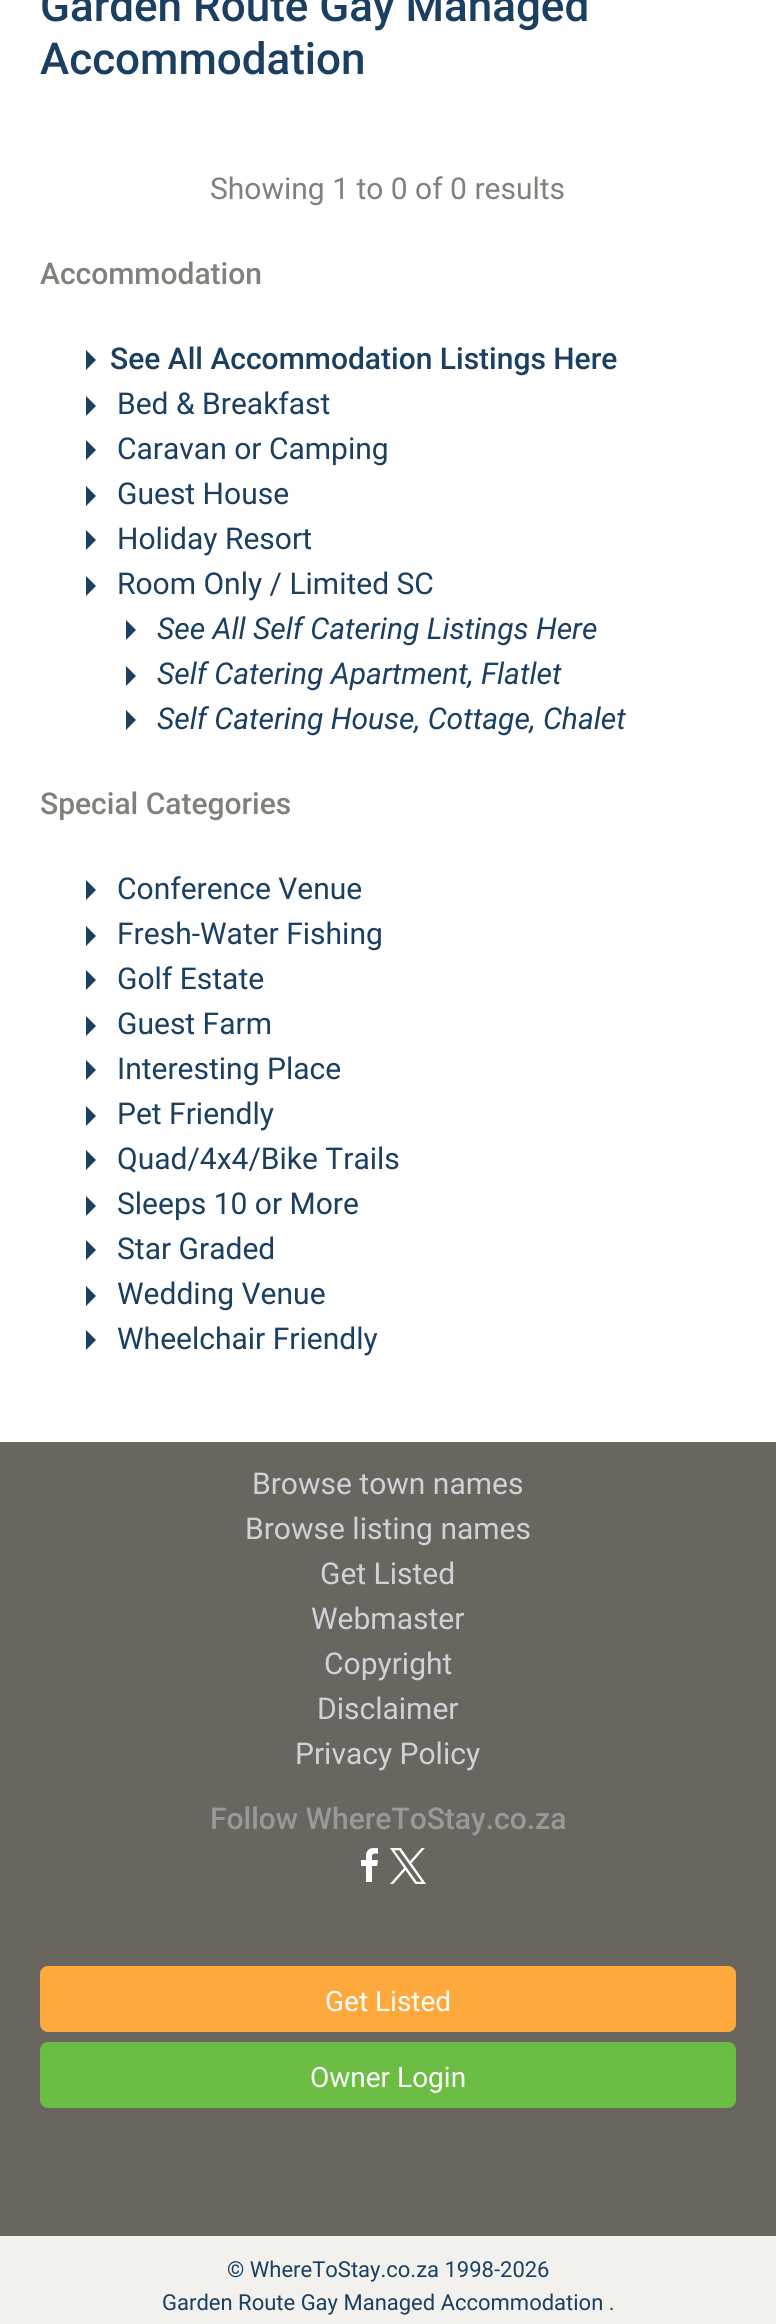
#include <cairo/cairo.h>
#include <math.h>
#include <stddef.h>

static cairo_t *cr;

static void use_color(int r, int g, int b) {
  cairo_set_source_rgb(cr, r / 255.0, g / 255.0, b / 255.0);
}

static void text(double x, double y, const char *s, const char *family, double size, int italic, int bold, int r, int g, int b) {
  cairo_select_font_face(cr, family, italic ? CAIRO_FONT_SLANT_ITALIC : CAIRO_FONT_SLANT_NORMAL,
    bold ? CAIRO_FONT_WEIGHT_BOLD : CAIRO_FONT_WEIGHT_NORMAL);
  cairo_set_font_size(cr, size);
  use_color(r, g, b);
  cairo_move_to(cr, x, y);
  cairo_show_text(cr, s);
}

static void box(double x, double y, double w, double h, int r, int g, int b) {
  use_color(r, g, b);
  cairo_rectangle(cr, x, y, w, h);
  cairo_fill(cr);
}

static void round_rect(double x, double y, double w, double h, double r) {
  cairo_new_sub_path(cr);
  cairo_arc(cr, x + w - r, y + h - r, r, 0, M_PI / 2);
  cairo_arc(cr, x + r, y + h - r, r, M_PI / 2, M_PI);
  cairo_arc(cr, x + r, y + r, r, M_PI, 1.5 * M_PI);
  cairo_arc(cr, x + w - r, y + r, r, 1.5 * M_PI, 2 * M_PI);
  cairo_close_path(cr);
}

static void picture(const char *path, double x, double y, double w, double h) {
  cairo_surface_t *image = cairo_image_surface_create_from_png(path);
  cairo_save(cr);
  cairo_set_source_surface(cr, image, x, y);
  cairo_rectangle(cr, x, y, w, h);
  cairo_fill(cr);
  cairo_restore(cr);
  cairo_surface_destroy(image);
}

static void draw(void) {
  use_color(242, 241, 238);
  cairo_paint(cr);
  box(0, 0, 776, 1442, 255, 255, 255);
  use_color(26, 63, 97);
  cairo_new_path(cr);
  cairo_move_to(cr, 86, 350);
  cairo_line_to(cr, 96, 360);
  cairo_line_to(cr, 86, 370);
  cairo_close_path(cr);
  cairo_fill(cr);
  cairo_new_path(cr);
  cairo_move_to(cr, 86, 396);
  cairo_line_to(cr, 96, 406);
  cairo_line_to(cr, 86, 416);
  cairo_close_path(cr);
  cairo_fill(cr);
  cairo_new_path(cr);
  cairo_move_to(cr, 86, 440);
  cairo_line_to(cr, 96, 450);
  cairo_line_to(cr, 86, 460);
  cairo_close_path(cr);
  cairo_fill(cr);
  cairo_new_path(cr);
  cairo_move_to(cr, 86, 486);
  cairo_line_to(cr, 96, 496);
  cairo_line_to(cr, 86, 506);
  cairo_close_path(cr);
  cairo_fill(cr);
  cairo_new_path(cr);
  cairo_move_to(cr, 86, 530);
  cairo_line_to(cr, 96, 540);
  cairo_line_to(cr, 86, 550);
  cairo_close_path(cr);
  cairo_fill(cr);
  cairo_new_path(cr);
  cairo_move_to(cr, 86, 576);
  cairo_line_to(cr, 96, 586);
  cairo_line_to(cr, 86, 596);
  cairo_close_path(cr);
  cairo_fill(cr);
  cairo_new_path(cr);
  cairo_move_to(cr, 126, 620);
  cairo_line_to(cr, 136, 630);
  cairo_line_to(cr, 126, 640);
  cairo_close_path(cr);
  cairo_fill(cr);
  cairo_new_path(cr);
  cairo_move_to(cr, 126, 666);
  cairo_line_to(cr, 136, 676);
  cairo_line_to(cr, 126, 686);
  cairo_close_path(cr);
  cairo_fill(cr);
  cairo_new_path(cr);
  cairo_move_to(cr, 126, 710);
  cairo_line_to(cr, 136, 720);
  cairo_line_to(cr, 126, 730);
  cairo_close_path(cr);
  cairo_fill(cr);
  cairo_new_path(cr);
  cairo_move_to(cr, 86, 880);
  cairo_line_to(cr, 96, 890);
  cairo_line_to(cr, 86, 900);
  cairo_close_path(cr);
  cairo_fill(cr);
  cairo_new_path(cr);
  cairo_move_to(cr, 86, 926);
  cairo_line_to(cr, 96, 936);
  cairo_line_to(cr, 86, 946);
  cairo_close_path(cr);
  cairo_fill(cr);
  cairo_new_path(cr);
  cairo_move_to(cr, 86, 970);
  cairo_line_to(cr, 96, 980);
  cairo_line_to(cr, 86, 990);
  cairo_close_path(cr);
  cairo_fill(cr);
  cairo_new_path(cr);
  cairo_move_to(cr, 86, 1016);
  cairo_line_to(cr, 96, 1026);
  cairo_line_to(cr, 86, 1036);
  cairo_close_path(cr);
  cairo_fill(cr);
  cairo_new_path(cr);
  cairo_move_to(cr, 86, 1060);
  cairo_line_to(cr, 96, 1070);
  cairo_line_to(cr, 86, 1080);
  cairo_close_path(cr);
  cairo_fill(cr);
  cairo_new_path(cr);
  cairo_move_to(cr, 86, 1106);
  cairo_line_to(cr, 96, 1116);
  cairo_line_to(cr, 86, 1126);
  cairo_close_path(cr);
  cairo_fill(cr);
  cairo_new_path(cr);
  cairo_move_to(cr, 86, 1150);
  cairo_line_to(cr, 96, 1160);
  cairo_line_to(cr, 86, 1170);
  cairo_close_path(cr);
  cairo_fill(cr);
  cairo_new_path(cr);
  cairo_move_to(cr, 86, 1196);
  cairo_line_to(cr, 96, 1206);
  cairo_line_to(cr, 86, 1216);
  cairo_close_path(cr);
  cairo_fill(cr);
  cairo_new_path(cr);
  cairo_move_to(cr, 86, 1240);
  cairo_line_to(cr, 96, 1250);
  cairo_line_to(cr, 86, 1260);
  cairo_close_path(cr);
  cairo_fill(cr);
  cairo_new_path(cr);
  cairo_move_to(cr, 86, 1286);
  cairo_line_to(cr, 96, 1296);
  cairo_line_to(cr, 86, 1306);
  cairo_close_path(cr);
  cairo_fill(cr);
  cairo_new_path(cr);
  cairo_move_to(cr, 86, 1330);
  cairo_line_to(cr, 96, 1340);
  cairo_line_to(cr, 86, 1350);
  cairo_close_path(cr);
  cairo_fill(cr);
  box(0, 1442, 776, 794, 105, 102, 96);
  picture("img_01.png", 361, 1848, 17, 34);
  picture("img_02.png", 390, 1848, 36, 36);
  use_color(255, 169, 61);
  round_rect(40, 1966, 696, 66, 8);
  cairo_fill(cr);
  use_color(108, 189, 67);
  round_rect(40, 2042, 696, 66, 8);
  cairo_fill(cr);
  text(40, 21, "Garden Route Gay Managed", "Roboto Medium", 44, 0, 0, 26, 63, 97);
  text(40, 74, "Accommodation", "Roboto Medium", 44, 0, 0, 26, 63, 97);
  text(210, 199, "Showing 1 to 0 of 0 results", "Roboto", 30, 0, 0, 130, 128, 122);
  text(40, 284, "Accommodation", "Roboto Medium", 30, 0, 0, 130, 128, 122);
  text(110, 369, "See All Accommodation Listings Here", "Roboto Medium", 30, 0, 0, 26, 63, 97);
  text(117, 414, "Bed & Breakfast", "Roboto", 30, 0, 0, 26, 63, 97);
  text(117, 459, "Caravan or Camping", "Roboto", 30, 0, 0, 26, 63, 97);
  text(117, 504, "Guest House", "Roboto", 30, 0, 0, 26, 63, 97);
  text(117, 549, "Holiday Resort", "Roboto", 30, 0, 0, 26, 63, 97);
  text(117, 594, "Room Only / Limited SC", "Roboto", 30, 0, 0, 26, 63, 97);
  text(157, 639, "See All Self Catering Listings Here", "Roboto", 30, 1, 0, 26, 63, 97);
  text(157, 684, "Self Catering Apartment, Flatlet", "Roboto", 30, 1, 0, 26, 63, 97);
  text(157, 729, "Self Catering House, Cottage, Chalet", "Roboto", 30, 1, 0, 26, 63, 97);
  text(40, 814, "Special Categories", "Roboto Medium", 30, 0, 0, 130, 128, 122);
  text(117, 899, "Conference Venue", "Roboto", 30, 0, 0, 26, 63, 97);
  text(117, 944, "Fresh-Water Fishing", "Roboto", 30, 0, 0, 26, 63, 97);
  text(117, 989, "Golf Estate", "Roboto", 30, 0, 0, 26, 63, 97);
  text(117, 1034, "Guest Farm", "Roboto", 30, 0, 0, 26, 63, 97);
  text(117, 1079, "Interesting Place", "Roboto", 30, 0, 0, 26, 63, 97);
  text(117, 1124, "Pet Friendly", "Roboto", 30, 0, 0, 26, 63, 97);
  text(117, 1169, "Quad/4x4/Bike Trails", "Roboto", 30, 0, 0, 26, 63, 97);
  text(117, 1214, "Sleeps 10 or More", "Roboto", 30, 0, 0, 26, 63, 97);
  text(117, 1259, "Star Graded", "Roboto", 30, 0, 0, 26, 63, 97);
  text(117, 1304, "Wedding Venue", "Roboto", 30, 0, 0, 26, 63, 97);
  text(117, 1349, "Wheelchair Friendly", "Roboto", 30, 0, 0, 26, 63, 97);
  text(252, 1494, "Browse town names", "Roboto", 30, 0, 0, 208, 210, 213);
  text(245, 1539, "Browse listing names", "Roboto", 30, 0, 0, 208, 210, 213);
  text(320, 1584, "Get Listed", "Roboto", 30, 0, 0, 208, 210, 213);
  text(311, 1629, "Webmaster", "Roboto", 30, 0, 0, 208, 210, 213);
  text(324, 1674, "Copyright", "Roboto", 30, 0, 0, 208, 210, 213);
  text(317, 1719, "Disclaimer", "Roboto", 30, 0, 0, 208, 210, 213);
  text(295, 1764, "Privacy Policy", "Roboto", 30, 0, 0, 208, 210, 213);
  text(210, 1829, "Follow WhereToStay.co.za", "Roboto Medium", 30, 0, 0, 153, 153, 153);
  text(325, 2011, "Get Listed", "Roboto", 28, 0, 0, 255, 255, 255);
  text(310, 2087, "Owner Login", "Roboto", 28, 0, 0, 255, 255, 255);
  text(227, 2277, "© WhereToStay.co.za 1998-2026", "Roboto", 22, 0, 0, 26, 63, 97);
  text(162, 2310, "Garden Route Gay Managed Accommodation .", "Roboto", 22, 0, 0, 26, 63, 97);
}

int main(void) {
  cairo_surface_t *surface = cairo_image_surface_create(CAIRO_FORMAT_RGB24, 776, 2324);
  cr = cairo_create(surface);
  cairo_font_options_t *options = cairo_font_options_create();
  cairo_font_options_set_hint_metrics(options, CAIRO_HINT_METRICS_OFF);
  cairo_font_options_set_hint_style(options, CAIRO_HINT_STYLE_NONE);
  cairo_set_font_options(cr, options);
  cairo_set_miter_limit(cr, 4);
  draw();
  cairo_surface_write_to_png(surface, "out.png");
  cairo_font_options_destroy(options);
  cairo_destroy(cr);
  cairo_surface_destroy(surface);
  return 0;
}
